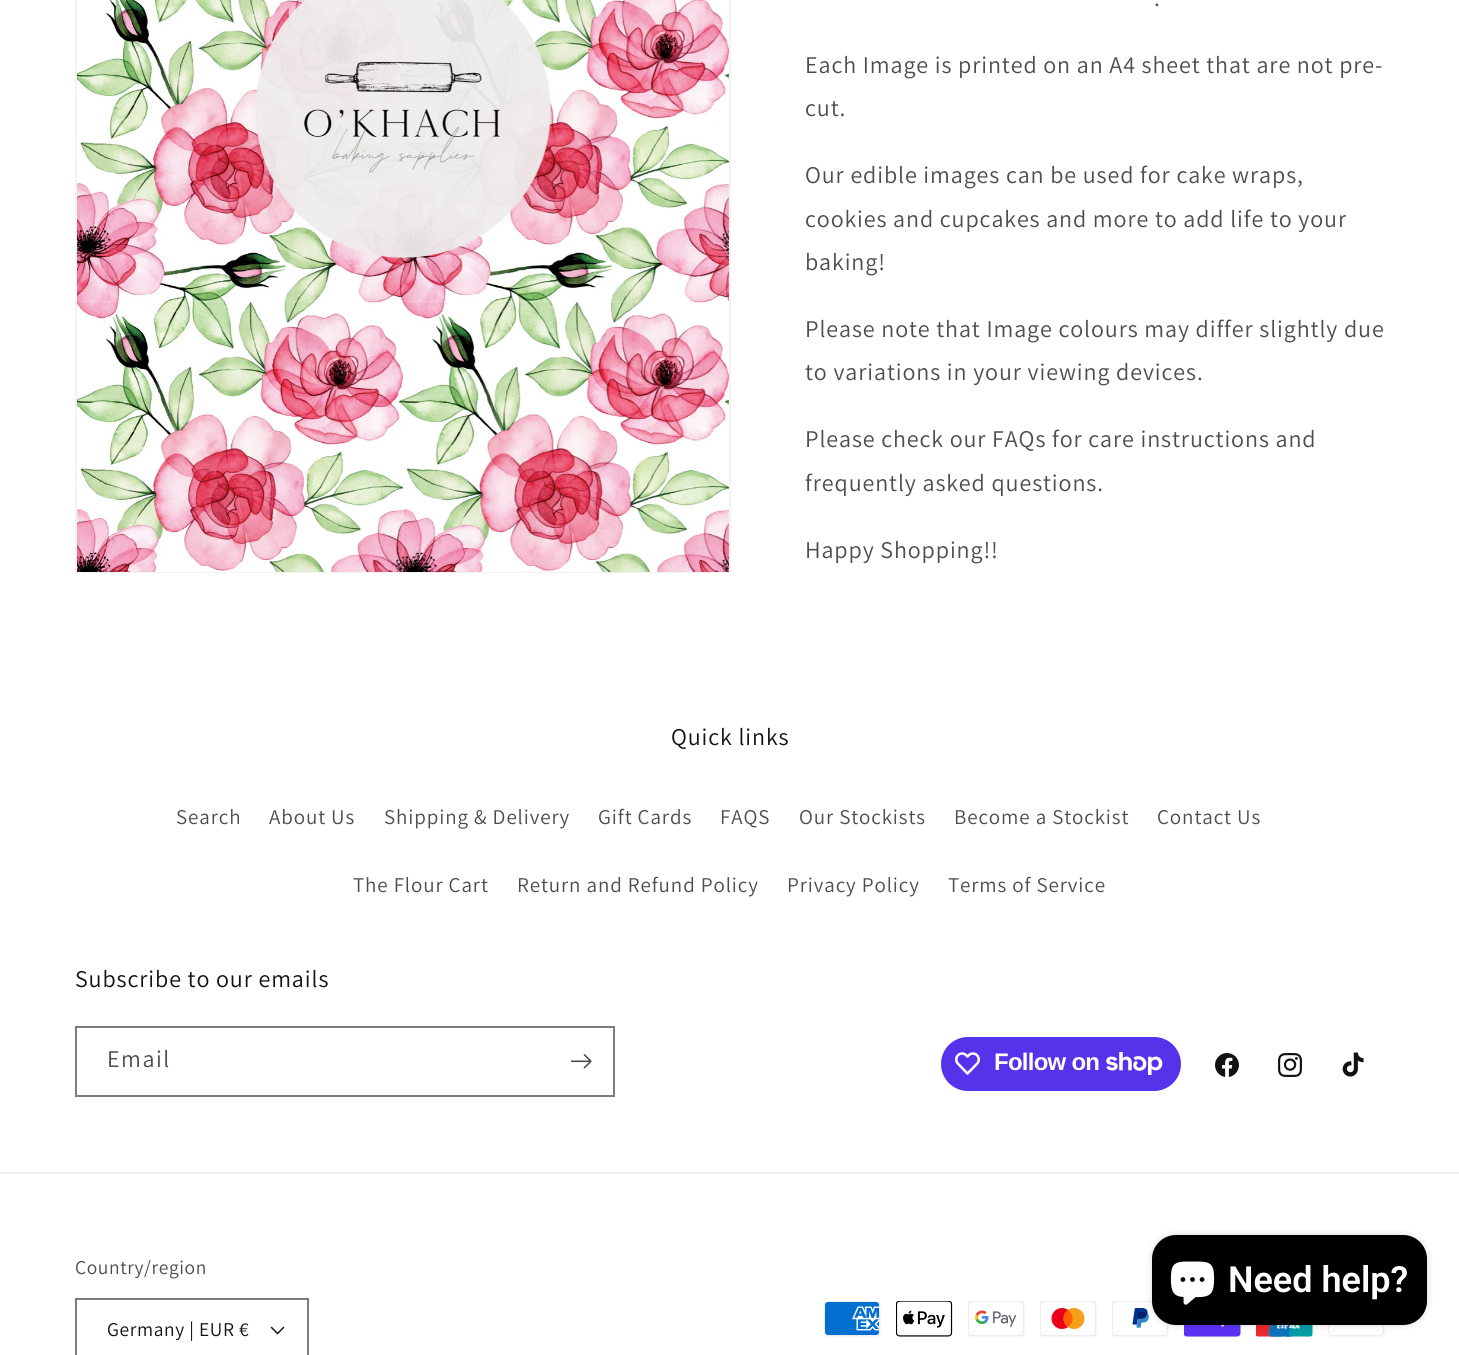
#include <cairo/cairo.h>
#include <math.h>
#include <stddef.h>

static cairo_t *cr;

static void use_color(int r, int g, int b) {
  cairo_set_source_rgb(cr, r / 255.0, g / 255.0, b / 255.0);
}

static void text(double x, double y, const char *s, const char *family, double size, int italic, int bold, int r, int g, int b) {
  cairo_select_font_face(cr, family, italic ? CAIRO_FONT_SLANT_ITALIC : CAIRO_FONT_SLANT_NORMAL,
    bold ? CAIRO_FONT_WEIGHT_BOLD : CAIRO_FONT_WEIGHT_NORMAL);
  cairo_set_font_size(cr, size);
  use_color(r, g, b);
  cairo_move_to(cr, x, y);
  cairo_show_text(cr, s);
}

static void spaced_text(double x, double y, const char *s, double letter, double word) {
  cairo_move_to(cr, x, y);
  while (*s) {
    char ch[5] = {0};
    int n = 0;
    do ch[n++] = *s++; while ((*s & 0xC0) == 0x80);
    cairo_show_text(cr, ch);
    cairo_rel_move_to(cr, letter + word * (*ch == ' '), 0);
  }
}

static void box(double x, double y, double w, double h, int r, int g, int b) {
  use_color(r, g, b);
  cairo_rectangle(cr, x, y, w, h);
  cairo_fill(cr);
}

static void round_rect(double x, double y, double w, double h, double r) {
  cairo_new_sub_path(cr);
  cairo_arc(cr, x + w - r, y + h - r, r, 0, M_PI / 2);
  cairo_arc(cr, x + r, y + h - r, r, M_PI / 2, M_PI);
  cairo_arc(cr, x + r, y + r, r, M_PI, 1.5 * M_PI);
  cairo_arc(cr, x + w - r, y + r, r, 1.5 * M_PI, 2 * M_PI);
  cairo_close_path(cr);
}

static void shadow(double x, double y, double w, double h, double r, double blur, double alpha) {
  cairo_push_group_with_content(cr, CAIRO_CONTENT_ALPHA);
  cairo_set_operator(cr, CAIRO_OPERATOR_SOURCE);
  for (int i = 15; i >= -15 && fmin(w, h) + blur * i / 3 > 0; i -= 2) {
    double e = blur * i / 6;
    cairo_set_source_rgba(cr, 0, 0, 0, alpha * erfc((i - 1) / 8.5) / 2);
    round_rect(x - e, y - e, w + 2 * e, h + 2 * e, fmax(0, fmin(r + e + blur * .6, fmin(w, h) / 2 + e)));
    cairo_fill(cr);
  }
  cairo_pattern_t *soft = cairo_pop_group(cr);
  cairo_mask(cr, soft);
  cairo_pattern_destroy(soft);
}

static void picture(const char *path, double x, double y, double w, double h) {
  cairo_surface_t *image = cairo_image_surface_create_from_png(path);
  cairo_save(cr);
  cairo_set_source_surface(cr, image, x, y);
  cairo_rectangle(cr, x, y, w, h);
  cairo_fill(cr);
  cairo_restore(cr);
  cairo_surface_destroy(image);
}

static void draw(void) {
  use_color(255, 255, 255);
  cairo_paint(cr);
  cairo_rectangle(cr, 76, -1, 654, 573);
  use_color(243, 243, 243);
  cairo_stroke(cr);
  picture("img_01.png", 77, 0, 652, 572);
  cairo_rectangle(cr, 76, 1027, 538, 69);
  use_color(125, 125, 125);
  cairo_stroke(cr);
  picture("img_02.png", 570, 1054, 22, 15);
  use_color(84, 51, 235);
  round_rect(941, 1037, 240, 54, 27);
  cairo_fill(cr);
  picture("img_03.png", 955, 1052, 25, 23);
  picture("img_04.png", 1106, 1052, 57, 23);
  picture("img_05.png", 1215, 1053, 24, 24);
  picture("img_06.png", 1278, 1053, 24, 24);
  picture("img_07.png", 1342, 1052, 22, 25);
  box(0, 1172, 1459, 2, 236, 236, 236);
  picture("img_08.png", 270, 1326, 15, 9);
  cairo_rectangle(cr, 76, 1299, 232, 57);
  use_color(125, 125, 125);
  cairo_stroke(cr);
  picture("img_09.png", 824, 1301, 57, 36);
  picture("img_10.png", 896, 1301, 57, 36);
  picture("img_11.png", 968, 1301, 57, 36);
  picture("img_12.png", 1040, 1301, 57, 36);
  picture("img_13.png", 1112, 1301, 57, 36);
  picture("img_14.png", 1184, 1325, 57, 12);
  picture("img_15.png", 1256, 1325, 57, 12);
  picture("img_16.png", 1328, 1325, 57, 12);
  use_color(0, 0, 0);
  shadow(1152, 1235, 275, 90, 24, 4, 0.15);
  use_color(0, 0, 0);
  round_rect(1152, 1235, 275, 90, 24);
  cairo_fill(cr);
  picture("img_17.png", 1170, 1261, 45, 44);
  cairo_select_font_face(cr, "Assistant", CAIRO_FONT_SLANT_NORMAL, CAIRO_FONT_WEIGHT_NORMAL);
  cairo_set_font_size(cr, 24);
  use_color(77, 77, 77);
  spaced_text(1154, 6, ".", 0.9, 0);
  spaced_text(805, 73, "Each Image is printed on an A4 sheet that are not pre-", 0.9, 0);
  spaced_text(805, 116, "cut.", 0.9, 0);
  spaced_text(805, 183, "Our edible images can be used for cake wraps,", 0.9, 0);
  spaced_text(805, 227, "cookies and cupcakes and more to add life to your", 0.9, 0);
  spaced_text(805, 270, "baking!", 0.9, 0);
  spaced_text(805, 337, "Please note that Image colours may differ slightly due", 0.9, 0);
  spaced_text(805, 380, "to variations in your viewing devices.", 0.9, 0);
  spaced_text(805, 447, "Please check our FAQs for care instructions and", 0.9, 0);
  spaced_text(805, 491, "frequently asked questions.", 0.9, 0);
  spaced_text(805, 558, "Happy Shopping!!", 0.9, 0);
  use_color(18, 18, 18);
  spaced_text(671, 745, "Quick links", 0.9, 0);
  cairo_set_font_size(cr, 21);
  use_color(77, 77, 77);
  spaced_text(176, 824, "Search", 0.9, 0);
  spaced_text(269, 824, "About Us", 0.9, 0);
  spaced_text(384, 824, "Shipping & Delivery", 0.9, 0);
  spaced_text(598, 824, "Gift Cards", 0.9, 0);
  spaced_text(720, 824, "FAQS", 0.9, 0);
  spaced_text(799, 824, "Our Stockists", 0.9, 0);
  spaced_text(954, 824, "Become a Stockist", 0.9, 0);
  spaced_text(1157, 824, "Contact Us", 0.9, 0);
  spaced_text(353, 892, "The Flour Cart", 0.9, 0);
  spaced_text(517, 892, "Return and Refund Policy", 0.9, 0);
  spaced_text(787, 892, "Privacy Policy", 0.9, 0);
  spaced_text(948, 892, "Terms of Service", 0.9, 0);
  cairo_set_font_size(cr, 24);
  use_color(18, 18, 18);
  spaced_text(75, 987, "Subscribe to our emails", 0.9, 0);
  use_color(77, 77, 77);
  spaced_text(107, 1067, "Email", 1.5, 0);
  cairo_select_font_face(cr, "Liberation Sans", CAIRO_FONT_SLANT_NORMAL, CAIRO_FONT_WEIGHT_BOLD);
  use_color(255, 255, 255);
  spaced_text(994, 1070, "Follow on", -0.75, 0);
  cairo_select_font_face(cr, "Assistant", CAIRO_FONT_SLANT_NORMAL, CAIRO_FONT_WEIGHT_NORMAL);
  cairo_set_font_size(cr, 19.5);
  use_color(77, 77, 77);
  spaced_text(75, 1274, "Country/region", 0.6, 0);
  use_color(18, 18, 18);
  spaced_text(107, 1336, "Germany | EUR €", 0.6, 0);
  text(1228, 1292, "Need help?", "Roboto SemiBold", 36, 0, 0, 255, 255, 255);
}

int main(void) {
  cairo_surface_t *surface = cairo_image_surface_create(CAIRO_FORMAT_RGB24, 1459, 1355);
  cr = cairo_create(surface);
  cairo_font_options_t *options = cairo_font_options_create();
  cairo_font_options_set_hint_metrics(options, CAIRO_HINT_METRICS_OFF);
  cairo_font_options_set_hint_style(options, CAIRO_HINT_STYLE_NONE);
  cairo_set_font_options(cr, options);
  cairo_set_miter_limit(cr, 4);
  draw();
  cairo_surface_write_to_png(surface, "out.png");
  cairo_font_options_destroy(options);
  cairo_destroy(cr);
  cairo_surface_destroy(surface);
  return 0;
}
